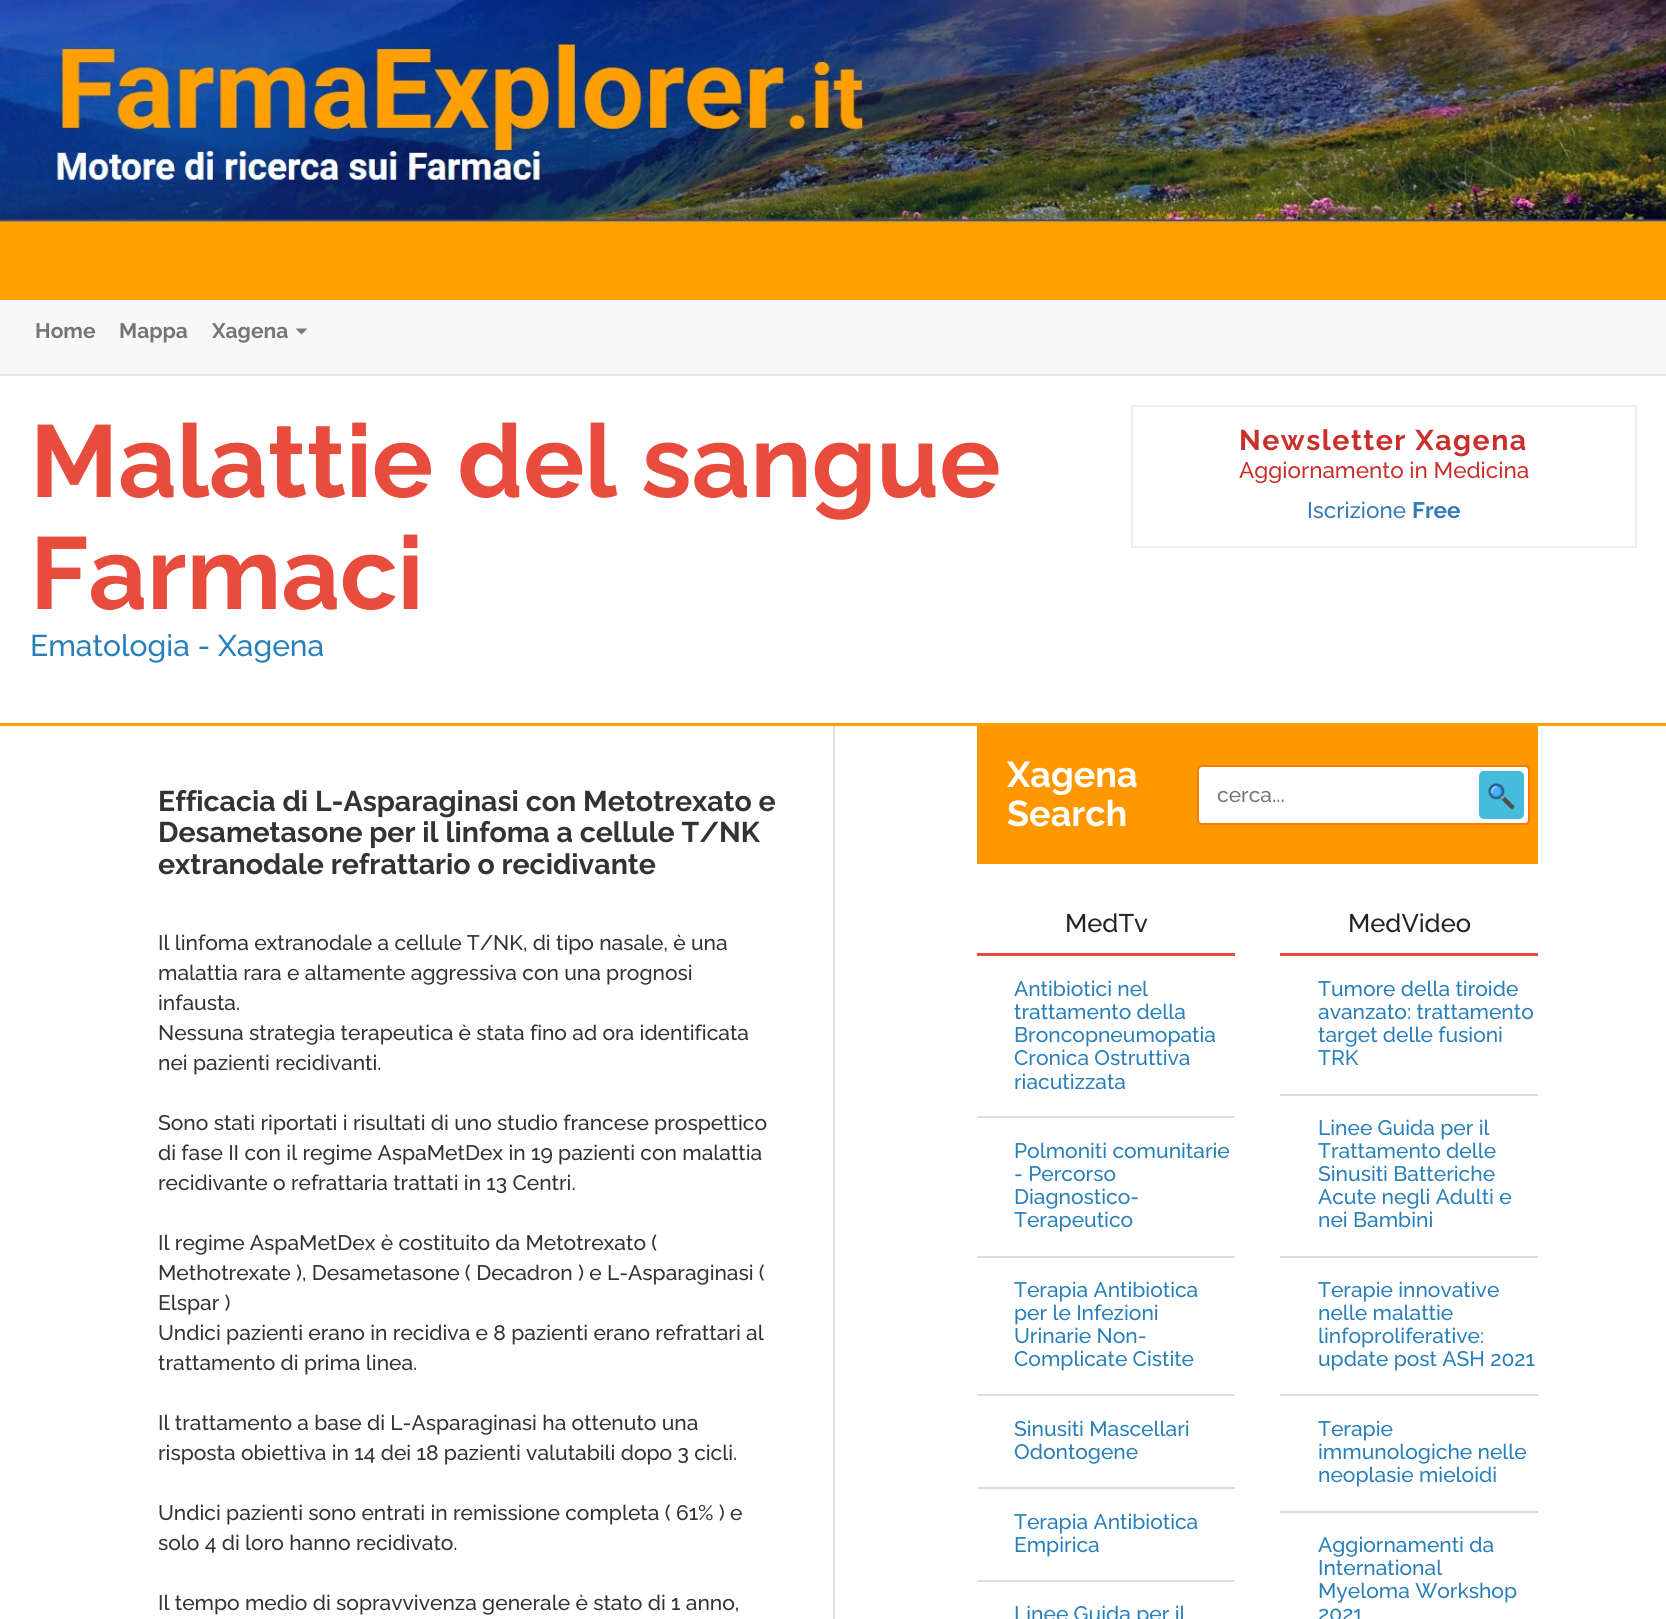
#include <cairo/cairo.h>
#include <math.h>
#include <stddef.h>

static cairo_t *cr;

static void use_color(int r, int g, int b) {
  cairo_set_source_rgb(cr, r / 255.0, g / 255.0, b / 255.0);
}

static void text(double x, double y, const char *s, const char *family, double size, int italic, int bold, int r, int g, int b) {
  cairo_select_font_face(cr, family, italic ? CAIRO_FONT_SLANT_ITALIC : CAIRO_FONT_SLANT_NORMAL,
    bold ? CAIRO_FONT_WEIGHT_BOLD : CAIRO_FONT_WEIGHT_NORMAL);
  cairo_set_font_size(cr, size);
  use_color(r, g, b);
  cairo_move_to(cr, x, y);
  cairo_show_text(cr, s);
}

static void spaced_text(double x, double y, const char *s, double letter, double word) {
  cairo_move_to(cr, x, y);
  while (*s) {
    char ch[5] = {0};
    int n = 0;
    do ch[n++] = *s++; while ((*s & 0xC0) == 0x80);
    cairo_show_text(cr, ch);
    cairo_rel_move_to(cr, letter + word * (*ch == ' '), 0);
  }
}

static void box(double x, double y, double w, double h, int r, int g, int b) {
  use_color(r, g, b);
  cairo_rectangle(cr, x, y, w, h);
  cairo_fill(cr);
}

static void round_rect(double x, double y, double w, double h, double r) {
  cairo_new_sub_path(cr);
  cairo_arc(cr, x + w - r, y + h - r, r, 0, M_PI / 2);
  cairo_arc(cr, x + r, y + h - r, r, M_PI / 2, M_PI);
  cairo_arc(cr, x + r, y + r, r, M_PI, 1.5 * M_PI);
  cairo_arc(cr, x + w - r, y + r, r, 1.5 * M_PI, 2 * M_PI);
  cairo_close_path(cr);
}

static void picture(const char *path, double x, double y, double w, double h) {
  cairo_surface_t *image = cairo_image_surface_create_from_png(path);
  cairo_save(cr);
  cairo_set_source_surface(cr, image, x, y);
  cairo_rectangle(cr, x, y, w, h);
  cairo_fill(cr);
  cairo_restore(cr);
  cairo_surface_destroy(image);
}

static void draw(void) {
  use_color(255, 255, 255);
  cairo_paint(cr);
  picture("img_01.png", 0, 0, 1666, 300);
  box(0, 300, 1666, 74, 248, 248, 248);
  box(0, 374, 1666, 2, 231, 231, 231);
  use_color(119, 119, 119);
  cairo_new_path(cr);
  cairo_move_to(cr, 295.5, 328.5);
  cairo_line_to(cr, 307.5, 328.5);
  cairo_line_to(cr, 301.5, 334.5);
  cairo_close_path(cr);
  cairo_fill(cr);
  cairo_rectangle(cr, 1132, 406, 504, 141);
  use_color(238, 238, 238);
  cairo_stroke(cr);
  box(0, 723, 1666, 3, 255, 160, 0);
  box(833, 726, 2, 893, 221, 221, 221);
  box(977, 726, 561, 138, 255, 152, 0);
  use_color(255, 255, 255);
  round_rect(1198, 766, 331, 58, 4);
  cairo_fill_preserve(cr);
  use_color(245, 124, 0);
  cairo_stroke(cr);
  use_color(71, 187, 219);
  round_rect(1479, 771, 45, 48, 5);
  cairo_fill(cr);
  picture("img_02.png", 1488, 783, 27, 27);
  box(977, 953, 258, 3, 231, 76, 60);
  box(977, 1116, 258, 2, 221, 221, 221);
  box(977, 1256, 258, 2, 221, 221, 221);
  box(977, 1394, 258, 2, 221, 221, 221);
  box(977, 1487, 258, 2, 221, 221, 221);
  box(977, 1580, 258, 2, 221, 221, 221);
  box(1280, 953, 258, 3, 231, 76, 60);
  box(1280, 1094, 258, 2, 221, 221, 221);
  box(1280, 1256, 258, 2, 221, 221, 221);
  box(1280, 1394, 258, 2, 221, 221, 221);
  box(1280, 1511, 258, 2, 221, 221, 221);
  text(35, 338, "Home", "Raleway", 21, 0, 1, 117, 117, 117);
  text(119, 338, "Mappa", "Raleway", 21, 0, 1, 117, 117, 117);
  text(212, 338, "Xagena", "Raleway", 21, 0, 1, 117, 117, 117);
  text(30, 497, "Malattie del sangue", "Raleway", 102, 0, 1, 231, 76, 60);
  text(30, 609, "Farmaci", "Raleway", 102, 0, 1, 231, 76, 60);
  text(30, 656, "Ematologia - Xagena", "Raleway Medium", 30, 0, 0, 41, 128, 185);
  cairo_select_font_face(cr, "Raleway", CAIRO_FONT_SLANT_NORMAL, CAIRO_FONT_WEIGHT_BOLD);
  cairo_set_font_size(cr, 28.5);
  use_color(201, 48, 44);
  spaced_text(1239, 450, "Newsletter Xagena", 1.5, 0);
  text(1239, 478, "Aggiornamento in Medicina", "Raleway Medium", 22.5, 0, 0, 201, 48, 44);
  text(1307, 518, "Iscrizione", "Raleway Medium", 22.5, 0, 0, 51, 122, 183);
  text(1412, 518, "Free", "Raleway", 22.5, 0, 1, 51, 122, 183);
  text(158, 811, "Efficacia di L-Asparaginasi con Metotrexato e", "Raleway", 28.5, 0, 1, 51, 51, 51);
  text(158, 842, "Desametasone per il linfoma a cellule T/NK", "Raleway", 28.5, 0, 1, 51, 51, 51);
  text(158, 874, "extranodale refrattario o recidivante", "Raleway", 28.5, 0, 1, 51, 51, 51);
  text(158, 950, "Il linfoma extranodale a cellule T/NK, di tipo nasale, è una", "Raleway Medium", 21, 0, 0, 51, 51, 51);
  text(158, 980, "malattia rara e altamente aggressiva con una prognosi", "Raleway Medium", 21, 0, 0, 51, 51, 51);
  text(158, 1010, "infausta.", "Raleway Medium", 21, 0, 0, 51, 51, 51);
  text(158, 1040, "Nessuna strategia terapeutica è stata fino ad ora identificata", "Raleway Medium", 21, 0, 0, 51, 51, 51);
  text(158, 1070, "nei pazienti recidivanti.", "Raleway Medium", 21, 0, 0, 51, 51, 51);
  text(158, 1130, "Sono stati riportati i risultati di uno studio francese prospettico", "Raleway Medium", 21, 0, 0, 51, 51, 51);
  text(158, 1160, "di fase II con il regime AspaMetDex in 19 pazienti con malattia", "Raleway Medium", 21, 0, 0, 51, 51, 51);
  text(158, 1190, "recidivante o refrattaria trattati in 13 Centri.", "Raleway Medium", 21, 0, 0, 51, 51, 51);
  text(158, 1250, "Il regime AspaMetDex è costituito da Metotrexato (", "Raleway Medium", 21, 0, 0, 51, 51, 51);
  text(158, 1280, "Methotrexate ), Desametasone ( Decadron ) e L-Asparaginasi (", "Raleway Medium", 21, 0, 0, 51, 51, 51);
  text(158, 1310, "Elspar )", "Raleway Medium", 21, 0, 0, 51, 51, 51);
  text(158, 1340, "Undici pazienti erano in recidiva e 8 pazienti erano refrattari al", "Raleway Medium", 21, 0, 0, 51, 51, 51);
  text(158, 1370, "trattamento di prima linea.", "Raleway Medium", 21, 0, 0, 51, 51, 51);
  text(158, 1430, "Il trattamento a base di L-Asparaginasi ha ottenuto una", "Raleway Medium", 21, 0, 0, 51, 51, 51);
  text(158, 1460, "risposta obiettiva in 14 dei 18 pazienti valutabili dopo 3 cicli.", "Raleway Medium", 21, 0, 0, 51, 51, 51);
  text(158, 1520, "Undici pazienti sono entrati in remissione completa ( 61% ) e", "Raleway Medium", 21, 0, 0, 51, 51, 51);
  text(158, 1550, "solo 4 di loro hanno recidivato.", "Raleway Medium", 21, 0, 0, 51, 51, 51);
  text(158, 1610, "Il tempo medio di sopravvivenza generale è stato di 1 anno,", "Raleway Medium", 21, 0, 0, 51, 51, 51);
  text(1007, 787, "Xagena", "Raleway", 36, 0, 1, 255, 255, 255);
  text(1007, 826, "Search", "Raleway", 36, 0, 1, 255, 255, 255);
  text(1217, 802, "cerca...", "Raleway Medium", 21, 0, 0, 117, 117, 117);
  text(1065, 932, "MedTv", "Raleway Medium", 25.5, 0, 0, 34, 34, 34);
  text(1014, 996, "Antibiotici nel", "Raleway Medium", 21, 0, 0, 41, 128, 185);
  text(1014, 1019, "trattamento della", "Raleway Medium", 21, 0, 0, 41, 128, 185);
  text(1014, 1042, "Broncopneumopatia", "Raleway Medium", 21, 0, 0, 41, 128, 185);
  text(1014, 1065, "Cronica Ostruttiva", "Raleway Medium", 21, 0, 0, 41, 128, 185);
  text(1014, 1089, "riacutizzata", "Raleway Medium", 21, 0, 0, 41, 128, 185);
  text(1014, 1158, "Polmoniti comunitarie", "Raleway Medium", 21, 0, 0, 41, 128, 185);
  text(1014, 1181, "- Percorso", "Raleway Medium", 21, 0, 0, 41, 128, 185);
  text(1014, 1204, "Diagnostico-", "Raleway Medium", 21, 0, 0, 41, 128, 185);
  text(1014, 1227, "Terapeutico", "Raleway Medium", 21, 0, 0, 41, 128, 185);
  text(1014, 1297, "Terapia Antibiotica", "Raleway Medium", 21, 0, 0, 41, 128, 185);
  text(1014, 1320, "per le Infezioni", "Raleway Medium", 21, 0, 0, 41, 128, 185);
  text(1014, 1343, "Urinarie Non-", "Raleway Medium", 21, 0, 0, 41, 128, 185);
  text(1014, 1366, "Complicate Cistite", "Raleway Medium", 21, 0, 0, 41, 128, 185);
  text(1014, 1436, "Sinusiti Mascellari", "Raleway Medium", 21, 0, 0, 41, 128, 185);
  text(1014, 1459, "Odontogene", "Raleway Medium", 21, 0, 0, 41, 128, 185);
  text(1014, 1529, "Terapia Antibiotica", "Raleway Medium", 21, 0, 0, 41, 128, 185);
  text(1014, 1552, "Empirica", "Raleway Medium", 21, 0, 0, 41, 128, 185);
  text(1014, 1621, "Linee Guida per il", "Raleway Medium", 21, 0, 0, 41, 128, 185);
  text(1348, 932, "MedVideo", "Raleway Medium", 25.5, 0, 0, 34, 34, 34);
  text(1318, 996, "Tumore della tiroide", "Raleway Medium", 21, 0, 0, 41, 128, 185);
  text(1318, 1019, "avanzato: trattamento", "Raleway Medium", 21, 0, 0, 41, 128, 185);
  text(1318, 1042, "target delle fusioni", "Raleway Medium", 21, 0, 0, 41, 128, 185);
  text(1318, 1065, "TRK", "Raleway Medium", 21, 0, 0, 41, 128, 185);
  text(1318, 1135, "Linee Guida per il", "Raleway Medium", 21, 0, 0, 41, 128, 185);
  text(1318, 1158, "Trattamento delle", "Raleway Medium", 21, 0, 0, 41, 128, 185);
  text(1318, 1181, "Sinusiti Batteriche", "Raleway Medium", 21, 0, 0, 41, 128, 185);
  text(1318, 1204, "Acute negli Adulti e", "Raleway Medium", 21, 0, 0, 41, 128, 185);
  text(1318, 1227, "nei Bambini", "Raleway Medium", 21, 0, 0, 41, 128, 185);
  text(1318, 1297, "Terapie innovative", "Raleway Medium", 21, 0, 0, 41, 128, 185);
  text(1318, 1320, "nelle malattie", "Raleway Medium", 21, 0, 0, 41, 128, 185);
  text(1318, 1343, "linfoproliferative:", "Raleway Medium", 21, 0, 0, 41, 128, 185);
  text(1318, 1366, "update post ASH 2021", "Raleway Medium", 21, 0, 0, 41, 128, 185);
  text(1318, 1436, "Terapie", "Raleway Medium", 21, 0, 0, 41, 128, 185);
  text(1318, 1459, "immunologiche nelle", "Raleway Medium", 21, 0, 0, 41, 128, 185);
  text(1318, 1482, "neoplasie mieloidi", "Raleway Medium", 21, 0, 0, 41, 128, 185);
  text(1318, 1552, "Aggiornamenti da", "Raleway Medium", 21, 0, 0, 41, 128, 185);
  text(1318, 1575, "International", "Raleway Medium", 21, 0, 0, 41, 128, 185);
  text(1318, 1598, "Myeloma Workshop", "Raleway Medium", 21, 0, 0, 41, 128, 185);
  text(1318, 1621, "2021", "Raleway Medium", 21, 0, 0, 41, 128, 185);
}

int main(void) {
  cairo_surface_t *surface = cairo_image_surface_create(CAIRO_FORMAT_RGB24, 1666, 1619);
  cr = cairo_create(surface);
  cairo_font_options_t *options = cairo_font_options_create();
  cairo_font_options_set_hint_metrics(options, CAIRO_HINT_METRICS_OFF);
  cairo_font_options_set_hint_style(options, CAIRO_HINT_STYLE_NONE);
  cairo_set_font_options(cr, options);
  cairo_set_miter_limit(cr, 4);
  draw();
  cairo_surface_write_to_png(surface, "out.png");
  cairo_font_options_destroy(options);
  cairo_destroy(cr);
  cairo_surface_destroy(surface);
  return 0;
}
